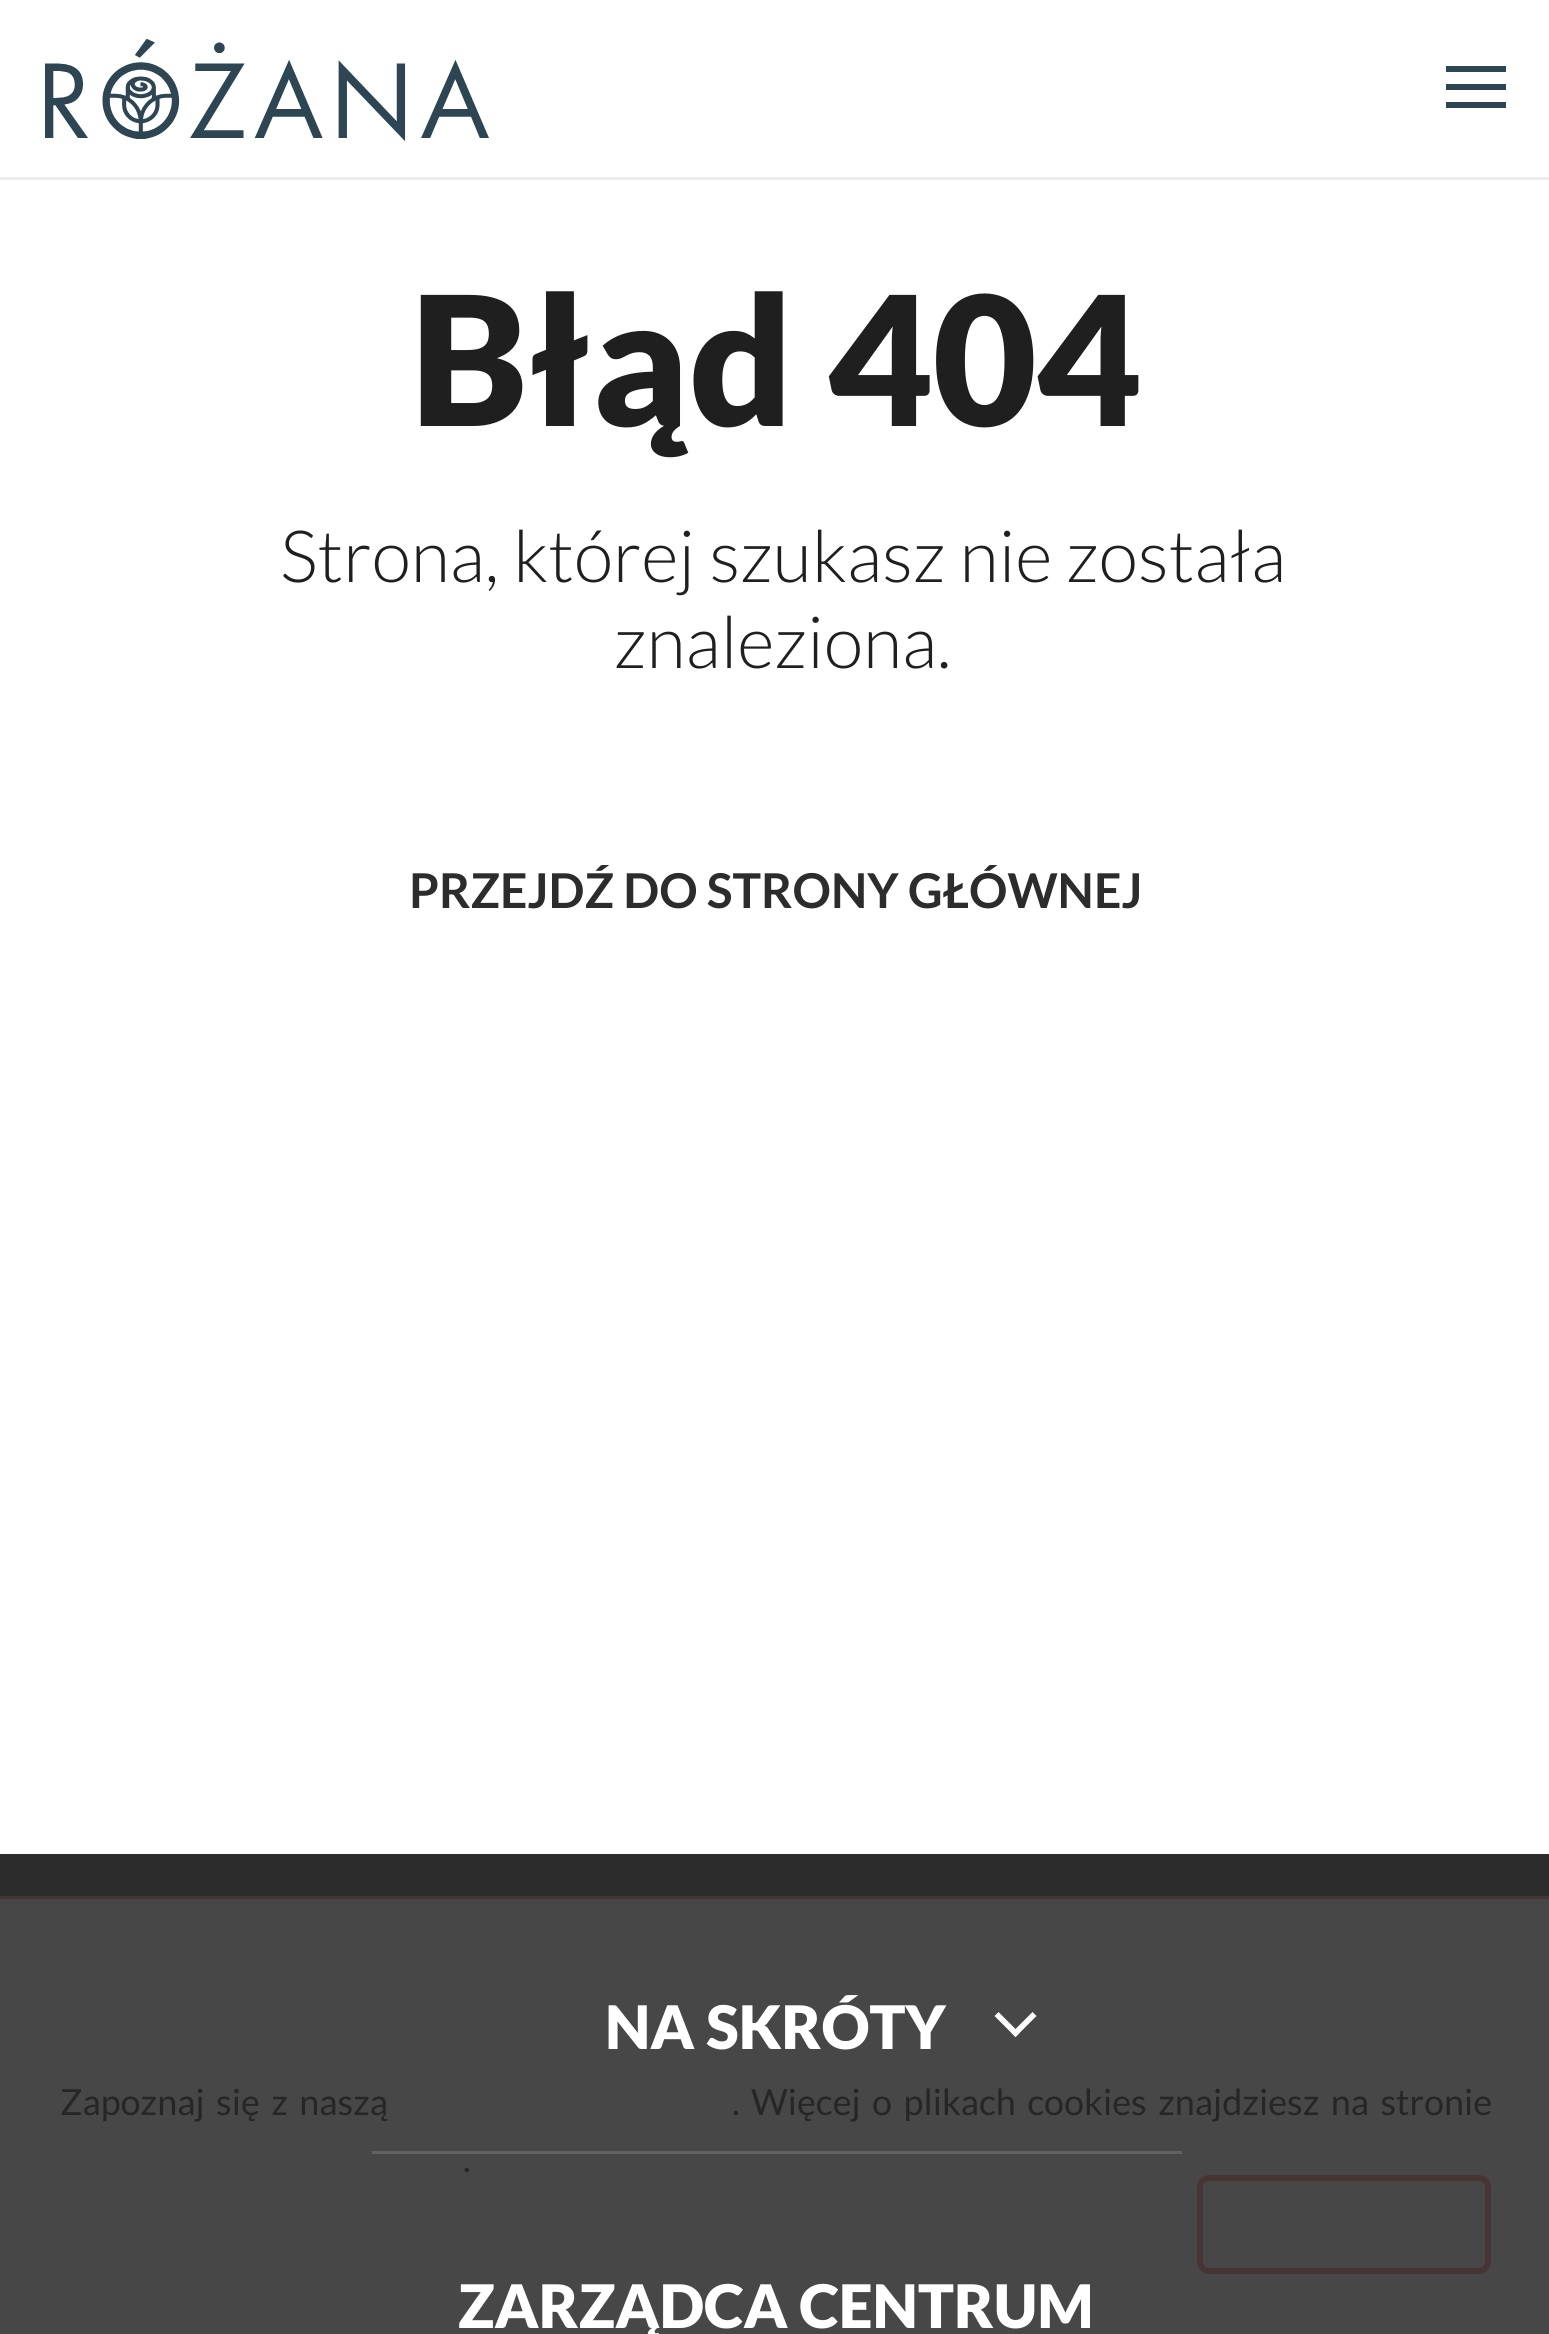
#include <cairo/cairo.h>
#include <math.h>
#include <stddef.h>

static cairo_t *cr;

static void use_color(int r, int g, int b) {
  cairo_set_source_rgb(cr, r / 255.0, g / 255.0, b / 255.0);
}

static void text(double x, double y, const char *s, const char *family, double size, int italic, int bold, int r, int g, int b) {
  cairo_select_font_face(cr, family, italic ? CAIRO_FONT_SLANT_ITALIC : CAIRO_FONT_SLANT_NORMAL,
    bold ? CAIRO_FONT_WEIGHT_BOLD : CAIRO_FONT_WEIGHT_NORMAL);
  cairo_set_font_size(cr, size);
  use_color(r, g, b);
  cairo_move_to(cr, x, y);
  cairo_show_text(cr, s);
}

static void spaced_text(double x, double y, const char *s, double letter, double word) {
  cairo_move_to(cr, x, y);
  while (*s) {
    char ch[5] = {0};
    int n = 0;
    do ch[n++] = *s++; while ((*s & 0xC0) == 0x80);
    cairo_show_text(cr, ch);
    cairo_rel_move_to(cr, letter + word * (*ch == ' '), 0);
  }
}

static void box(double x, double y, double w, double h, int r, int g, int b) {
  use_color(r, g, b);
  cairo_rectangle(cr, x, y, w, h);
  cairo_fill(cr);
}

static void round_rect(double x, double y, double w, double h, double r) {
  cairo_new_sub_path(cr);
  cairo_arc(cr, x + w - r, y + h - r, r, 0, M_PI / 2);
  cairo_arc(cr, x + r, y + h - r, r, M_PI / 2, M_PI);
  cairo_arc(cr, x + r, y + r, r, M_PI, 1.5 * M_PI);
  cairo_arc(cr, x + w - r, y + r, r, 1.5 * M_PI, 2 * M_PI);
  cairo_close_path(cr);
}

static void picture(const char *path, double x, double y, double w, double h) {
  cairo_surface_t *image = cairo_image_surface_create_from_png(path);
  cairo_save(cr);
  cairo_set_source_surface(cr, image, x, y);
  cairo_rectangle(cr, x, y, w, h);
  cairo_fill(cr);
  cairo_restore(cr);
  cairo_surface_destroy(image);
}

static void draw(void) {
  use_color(255, 255, 255);
  cairo_paint(cr);
  box(0, 177, 1549, 3, 235, 235, 235);
  picture("img_01.png", 45, 38, 444, 103);
  box(1446, 66, 60, 6, 46, 69, 83);
  box(1446, 84, 60, 6, 46, 69, 83);
  box(1446, 102, 60, 6, 46, 69, 83);
  box(0, 1854, 1549, 42, 44, 44, 44);
  box(0, 1899, 1549, 435, 71, 71, 71);
  box(372, 2151, 810, 3, 98, 98, 98);
  use_color(255, 255, 255);
  cairo_new_path(cr);
  cairo_move_to(cr, 1032.5, 2012);
  cairo_line_to(cr, 1036.5, 2016);
  cairo_line_to(cr, 1015.5, 2037);
  cairo_line_to(cr, 1011.5, 2033);
  cairo_close_path(cr);
  cairo_fill(cr);
  cairo_new_path(cr);
  cairo_move_to(cr, 998.5, 2012);
  cairo_line_to(cr, 1019.5, 2033);
  cairo_line_to(cr, 1015.5, 2037);
  cairo_line_to(cr, 994.5, 2016);
  cairo_close_path(cr);
  cairo_fill(cr);
  box(0, 1896, 1549, 3, 71, 53, 54);
  round_rect(1200, 2178, 288, 93, 9);
  cairo_set_line_width(cr, 6);
  cairo_stroke(cr);
  text(410, 426, "Błąd 404", "Lato Black", 180, 0, 0, 31, 31, 31);
  text(280, 582, "Strona, której szukasz nie została", "Lato Light", 72, 0, 0, 31, 31, 31);
  text(614, 668, "znaleziona.", "Lato Light", 72, 0, 0, 31, 31, 31);
  text(409, 908, "PRZEJDŹ DO STRONY GŁÓWNEJ", "Lato", 48, 0, 1, 44, 44, 44);
  text(605, 2049, "NA SKRÓTY", "Lato Black", 60, 0, 0, 255, 255, 255);
  text(458, 2328, "ZARZĄDCA CENTRUM", "Lato Black", 60, 0, 0, 255, 255, 255);
  cairo_select_font_face(cr, "Lato", CAIRO_FONT_SLANT_NORMAL, CAIRO_FONT_WEIGHT_NORMAL);
  cairo_set_font_size(cr, 36);
  use_color(38, 38, 38);
  spaced_text(60, 2115, "Zapoznaj się z naszą", 0, 4.5);
  spaced_text(732, 2115, ". Więcej o plikach cookies znajdziesz na stronie", 0, 4.5);
  text(463, 2172, ".", "Lato", 36, 0, 0, 38, 38, 38);
}

int main(void) {
  cairo_surface_t *surface = cairo_image_surface_create(CAIRO_FORMAT_RGB24, 1549, 2334);
  cr = cairo_create(surface);
  cairo_font_options_t *options = cairo_font_options_create();
  cairo_font_options_set_hint_metrics(options, CAIRO_HINT_METRICS_OFF);
  cairo_font_options_set_hint_style(options, CAIRO_HINT_STYLE_NONE);
  cairo_set_font_options(cr, options);
  cairo_set_miter_limit(cr, 4);
  draw();
  cairo_surface_write_to_png(surface, "out.png");
  cairo_font_options_destroy(options);
  cairo_destroy(cr);
  cairo_surface_destroy(surface);
  return 0;
}
